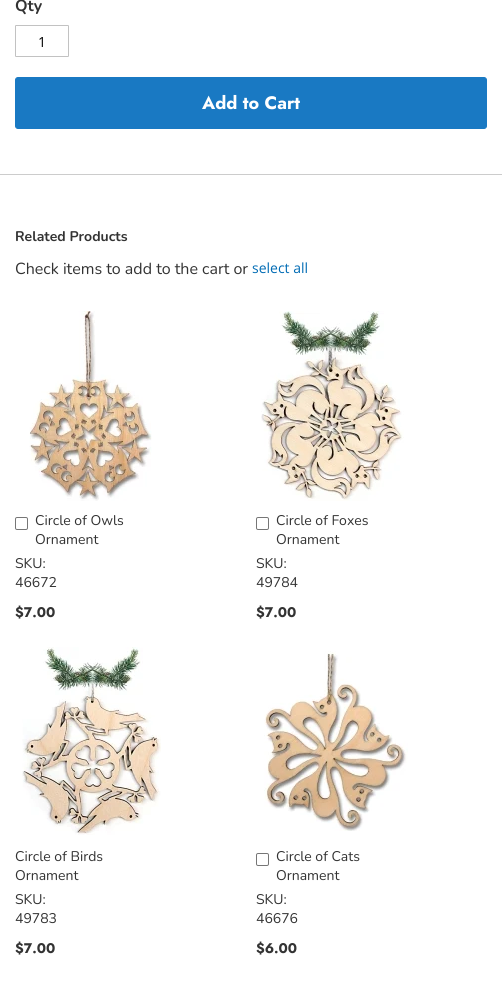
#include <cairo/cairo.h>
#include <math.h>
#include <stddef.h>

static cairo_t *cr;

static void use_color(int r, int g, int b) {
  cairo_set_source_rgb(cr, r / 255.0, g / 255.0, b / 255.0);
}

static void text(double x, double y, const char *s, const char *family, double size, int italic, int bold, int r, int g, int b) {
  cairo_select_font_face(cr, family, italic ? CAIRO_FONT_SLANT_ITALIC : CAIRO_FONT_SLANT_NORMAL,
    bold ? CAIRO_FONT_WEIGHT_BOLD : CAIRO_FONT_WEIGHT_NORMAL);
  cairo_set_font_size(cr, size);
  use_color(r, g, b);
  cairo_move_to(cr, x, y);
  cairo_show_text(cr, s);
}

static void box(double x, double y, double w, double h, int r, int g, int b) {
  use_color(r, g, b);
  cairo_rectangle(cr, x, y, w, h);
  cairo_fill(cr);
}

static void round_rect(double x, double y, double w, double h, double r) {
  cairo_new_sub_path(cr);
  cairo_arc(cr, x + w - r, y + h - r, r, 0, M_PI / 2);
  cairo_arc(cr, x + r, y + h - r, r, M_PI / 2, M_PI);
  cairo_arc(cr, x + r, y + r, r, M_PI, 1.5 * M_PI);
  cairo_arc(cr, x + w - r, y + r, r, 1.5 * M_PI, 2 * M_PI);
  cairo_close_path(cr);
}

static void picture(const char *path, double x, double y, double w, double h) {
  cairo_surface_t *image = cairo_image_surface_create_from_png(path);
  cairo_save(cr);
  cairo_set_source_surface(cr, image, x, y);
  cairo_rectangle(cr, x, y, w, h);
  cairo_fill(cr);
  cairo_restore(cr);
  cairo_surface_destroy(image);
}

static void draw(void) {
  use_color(255, 255, 255);
  cairo_paint(cr);
  round_rect(15.5, 25.5, 53, 31, 0.5);
  use_color(194, 194, 194);
  cairo_set_line_width(cr, 1);
  cairo_stroke(cr);
  use_color(25, 121, 195);
  round_rect(15.5, 77.5, 471, 51, 2.5);
  cairo_fill_preserve(cr);
  cairo_stroke(cr);
  box(0, 174, 502, 1, 204, 204, 204);
  picture("img_01.png", 29, 311, 123, 190);
  round_rect(15.5, 517.5, 12, 12, 1.5);
  use_color(118, 118, 118);
  cairo_stroke(cr);
  picture("img_02.png", 261, 311, 143, 190);
  round_rect(256.5, 517.5, 12, 12, 1.5);
  cairo_stroke(cr);
  picture("img_03.png", 22, 647, 139, 188);
  picture("img_04.png", 264, 651, 144, 180);
  round_rect(256.5, 853.5, 12, 12, 1.5);
  cairo_stroke(cr);
  text(15, 11, "Qty", "Nunito", 16, 0, 1, 51, 51, 51);
  text(38, 47, "1", "Open Sans", 14, 0, 0, 0, 0, 0);
  text(202, 109, "Add to Cart", "Jost", 18, 0, 1, 255, 255, 255);
  text(15, 241, "Related Products", "Nunito", 14, 0, 1, 51, 51, 51);
  text(15, 274, "Check items to add to the cart or", "Nunito", 16, 0, 0, 51, 51, 51);
  text(252, 273, "select all", "Open Sans", 14, 0, 0, 0, 107, 180);
  text(35, 525, "Circle of Owls", "Nunito", 14, 0, 0, 51, 51, 51);
  text(35, 544, "Ornament", "Nunito", 14, 0, 0, 51, 51, 51);
  text(15, 568, "SKU:", "Nunito", 14, 0, 0, 51, 51, 51);
  text(15, 587, "46672", "Nunito", 14, 0, 0, 51, 51, 51);
  text(15, 617, "$7.00", "Jost", 14, 0, 1, 51, 51, 51);
  text(276, 525, "Circle of Foxes", "Nunito", 14, 0, 0, 51, 51, 51);
  text(276, 544, "Ornament", "Nunito", 14, 0, 0, 51, 51, 51);
  text(256, 568, "SKU:", "Nunito", 14, 0, 0, 51, 51, 51);
  text(256, 587, "49784", "Nunito", 14, 0, 0, 51, 51, 51);
  text(256, 617, "$7.00", "Jost", 14, 0, 1, 51, 51, 51);
  text(15, 861, "Circle of Birds", "Nunito", 14, 0, 0, 51, 51, 51);
  text(15, 880, "Ornament", "Nunito", 14, 0, 0, 51, 51, 51);
  text(15, 904, "SKU:", "Nunito", 14, 0, 0, 51, 51, 51);
  text(15, 923, "49783", "Nunito", 14, 0, 0, 51, 51, 51);
  text(15, 953, "$7.00", "Jost", 14, 0, 1, 51, 51, 51);
  text(276, 861, "Circle of Cats", "Nunito", 14, 0, 0, 51, 51, 51);
  text(276, 880, "Ornament", "Nunito", 14, 0, 0, 51, 51, 51);
  text(256, 904, "SKU:", "Nunito", 14, 0, 0, 51, 51, 51);
  text(256, 923, "46676", "Nunito", 14, 0, 0, 51, 51, 51);
  text(256, 953, "$6.00", "Jost", 14, 0, 1, 51, 51, 51);
}

int main(void) {
  cairo_surface_t *surface = cairo_image_surface_create(CAIRO_FORMAT_RGB24, 502, 992);
  cr = cairo_create(surface);
  cairo_font_options_t *options = cairo_font_options_create();
  cairo_font_options_set_hint_metrics(options, CAIRO_HINT_METRICS_OFF);
  cairo_font_options_set_hint_style(options, CAIRO_HINT_STYLE_NONE);
  cairo_set_font_options(cr, options);
  cairo_set_miter_limit(cr, 4);
  draw();
  cairo_surface_write_to_png(surface, "out.png");
  cairo_font_options_destroy(options);
  cairo_destroy(cr);
  cairo_surface_destroy(surface);
  return 0;
}
